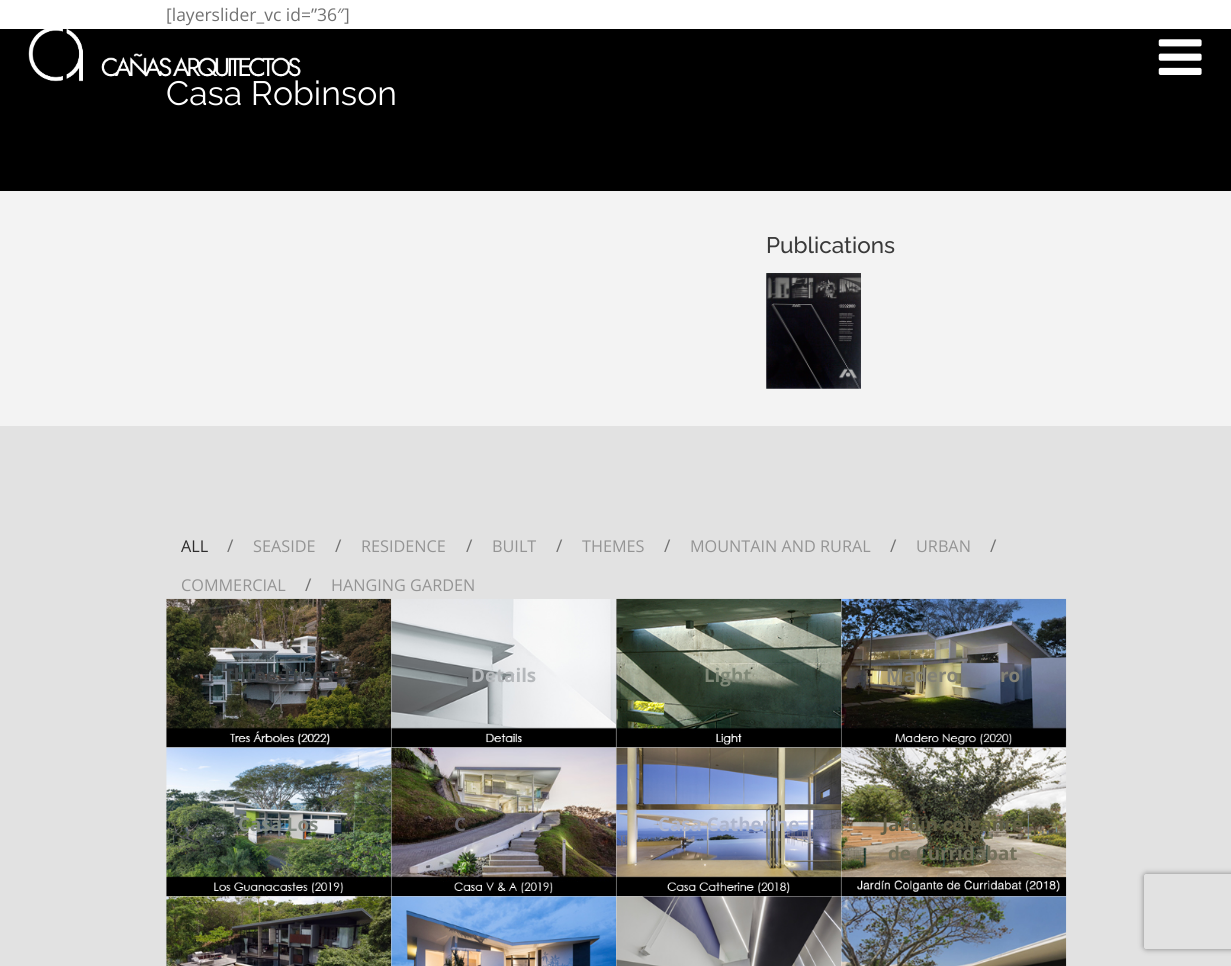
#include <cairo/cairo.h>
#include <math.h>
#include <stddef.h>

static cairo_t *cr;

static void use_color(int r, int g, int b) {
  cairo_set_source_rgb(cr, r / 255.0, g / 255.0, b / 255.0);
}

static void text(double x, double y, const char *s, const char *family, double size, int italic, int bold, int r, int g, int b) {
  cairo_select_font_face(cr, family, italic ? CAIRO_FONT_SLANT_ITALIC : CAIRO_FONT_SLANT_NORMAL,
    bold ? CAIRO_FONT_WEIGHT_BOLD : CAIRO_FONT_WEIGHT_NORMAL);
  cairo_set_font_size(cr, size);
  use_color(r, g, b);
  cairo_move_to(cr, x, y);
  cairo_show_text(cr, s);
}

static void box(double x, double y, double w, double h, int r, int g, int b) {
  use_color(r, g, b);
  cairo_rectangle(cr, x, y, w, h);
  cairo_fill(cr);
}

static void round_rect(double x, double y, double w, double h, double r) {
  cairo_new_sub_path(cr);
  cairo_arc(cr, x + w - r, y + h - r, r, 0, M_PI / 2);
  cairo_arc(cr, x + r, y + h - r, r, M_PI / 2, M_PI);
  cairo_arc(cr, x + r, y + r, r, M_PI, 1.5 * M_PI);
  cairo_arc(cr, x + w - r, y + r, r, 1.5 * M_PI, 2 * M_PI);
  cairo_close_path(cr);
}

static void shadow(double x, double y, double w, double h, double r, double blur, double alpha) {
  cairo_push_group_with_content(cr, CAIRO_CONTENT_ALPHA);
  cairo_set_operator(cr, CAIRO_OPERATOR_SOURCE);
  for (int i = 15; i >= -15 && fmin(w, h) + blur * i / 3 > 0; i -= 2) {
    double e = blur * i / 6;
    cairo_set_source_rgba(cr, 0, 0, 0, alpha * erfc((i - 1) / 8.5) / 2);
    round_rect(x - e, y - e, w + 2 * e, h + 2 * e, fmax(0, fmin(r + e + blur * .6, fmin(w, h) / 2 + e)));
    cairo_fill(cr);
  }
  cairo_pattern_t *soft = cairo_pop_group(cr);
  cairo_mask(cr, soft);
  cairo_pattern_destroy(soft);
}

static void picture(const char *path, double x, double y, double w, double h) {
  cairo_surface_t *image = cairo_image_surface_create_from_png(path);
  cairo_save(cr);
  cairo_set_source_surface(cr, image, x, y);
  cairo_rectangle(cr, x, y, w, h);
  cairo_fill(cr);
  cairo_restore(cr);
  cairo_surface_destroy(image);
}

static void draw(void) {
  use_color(255, 255, 255);
  cairo_paint(cr);
  box(0, 29, 1231, 162, 0, 0, 0);
  box(0, 191, 1231, 235, 243, 243, 243);
  picture("img_01.png", 766, 273, 95, 116);
  box(0, 426, 1231, 540, 226, 226, 226);
  picture("img_02.png", 166, 598, 226, 150);
  picture("img_03.png", 391, 599, 226, 149);
  picture("img_04.png", 616, 598, 226, 150);
  picture("img_05.png", 841, 598, 226, 150);
  picture("img_06.png", 166, 747, 226, 150);
  picture("img_07.png", 391, 747, 226, 150);
  picture("img_08.png", 616, 747, 226, 150);
  picture("img_09.png", 841, 747, 226, 150);
  picture("img_10.png", 166, 896, 226, 70);
  picture("img_11.png", 391, 896, 226, 70);
  picture("img_12.png", 616, 896, 226, 70);
  picture("img_13.png", 841, 896, 226, 70);
  picture("img_15.png", 1158, 39, 44, 36);
  cairo_save(cr);
  cairo_set_fill_rule(cr, CAIRO_FILL_RULE_EVEN_ODD);
  cairo_new_path(cr);
  cairo_move_to(cr, 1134, 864);
  cairo_line_to(cr, 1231, 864);
  cairo_line_to(cr, 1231, 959);
  cairo_line_to(cr, 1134, 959);
  cairo_close_path(cr);
  cairo_move_to(cr, 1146.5, 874);
  cairo_line_to(cr, 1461.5, 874);
  cairo_curve_to(cr, 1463, 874, 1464, 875, 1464, 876.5);
  cairo_line_to(cr, 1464, 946.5);
  cairo_curve_to(cr, 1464, 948, 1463, 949, 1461.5, 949);
  cairo_line_to(cr, 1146.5, 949);
  cairo_curve_to(cr, 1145, 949, 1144, 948, 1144, 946.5);
  cairo_line_to(cr, 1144, 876.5);
  cairo_curve_to(cr, 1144, 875, 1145, 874, 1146.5, 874);
  cairo_close_path(cr);
  cairo_clip(cr);
  use_color(128, 128, 128);
  shadow(1144, 874, 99, 75, 2.5, 3, 1);
  cairo_restore(cr);
  text(166, 21, "[layerslider_vc id=”36″]", "Open Sans", 17.5, 0, 0, 114, 114, 114);
  text(166, 105, "Casa Robinson", "Raleway", 33.75, 0, 0, 255, 255, 255);
  text(766, 253, "Publications", "Raleway Medium", 22.5, 0, 0, 57, 57, 57);
  text(181, 552, "ALL", "Open Sans", 16.25, 0, 0, 45, 44, 44);
  text(227, 552, "/", "Open Sans", 17.5, 0, 0, 114, 114, 114);
  text(253, 552, "SEASIDE", "Open Sans", 16.25, 0, 0, 148, 148, 148);
  text(335, 552, "/", "Open Sans", 17.5, 0, 0, 114, 114, 114);
  text(361, 552, "RESIDENCE", "Open Sans", 16.25, 0, 0, 148, 148, 148);
  text(466, 552, "/", "Open Sans", 17.5, 0, 0, 114, 114, 114);
  text(492, 552, "BUILT", "Open Sans", 16.25, 0, 0, 148, 148, 148);
  text(556, 552, "/", "Open Sans", 17.5, 0, 0, 114, 114, 114);
  text(582, 552, "THEMES", "Open Sans", 16.25, 0, 0, 148, 148, 148);
  text(664, 552, "/", "Open Sans", 17.5, 0, 0, 114, 114, 114);
  text(690, 552, "MOUNTAIN AND RURAL", "Open Sans", 16.25, 0, 0, 148, 148, 148);
  text(890, 552, "/", "Open Sans", 17.5, 0, 0, 114, 114, 114);
  text(916, 552, "URBAN", "Open Sans", 16.25, 0, 0, 148, 148, 148);
  text(990, 552, "/", "Open Sans", 17.5, 0, 0, 114, 114, 114);
  text(181, 591, "COMMERCIAL", "Open Sans", 16.25, 0, 0, 148, 148, 148);
  text(305, 591, "/", "Open Sans", 17.5, 0, 0, 114, 114, 114);
  text(331, 591, "HANGING GARDEN", "Open Sans", 16.25, 0, 0, 148, 148, 148);
  text(223, 682, "Three Trees", "Open Sans", 18.75, 0, 1, 65, 69, 71);
  text(471, 682, "Details", "Open Sans", 18.75, 0, 1, 181, 184, 187);
  text(704, 682, "Light", "Open Sans", 18.75, 0, 1, 127, 136, 119);
  text(886, 682, "Madero", "Open Sans", 18.75, 0, 1, 131, 130, 118);
  text(1000, 682, "ro", "Open Sans", 18.75, 0, 1, 131, 130, 118);
  text(238, 831, "Casa Los", "Open Sans", 18.75, 0, 1, 130, 138, 130);
  text(454, 831, "C", "Open Sans", 18.75, 0, 1, 101, 98, 105);
  text(658, 831, "Casa Catherine", "Open Sans", 18.75, 0, 1, 174, 182, 205);
  text(882, 831, "Jardín colgante", "Open Sans", 18.75, 0, 1, 97, 94, 69);
  text(888, 860, "de Curridabat", "Open Sans", 18.75, 0, 1, 114, 112, 91);
  picture("img_14.png", 28, 29, 273, 53);
}

int main(void) {
  cairo_surface_t *surface = cairo_image_surface_create(CAIRO_FORMAT_RGB24, 1231, 966);
  cr = cairo_create(surface);
  cairo_font_options_t *options = cairo_font_options_create();
  cairo_font_options_set_hint_metrics(options, CAIRO_HINT_METRICS_OFF);
  cairo_font_options_set_hint_style(options, CAIRO_HINT_STYLE_NONE);
  cairo_set_font_options(cr, options);
  cairo_set_miter_limit(cr, 4);
  draw();
  cairo_surface_write_to_png(surface, "out.png");
  cairo_font_options_destroy(options);
  cairo_destroy(cr);
  cairo_surface_destroy(surface);
  return 0;
}
